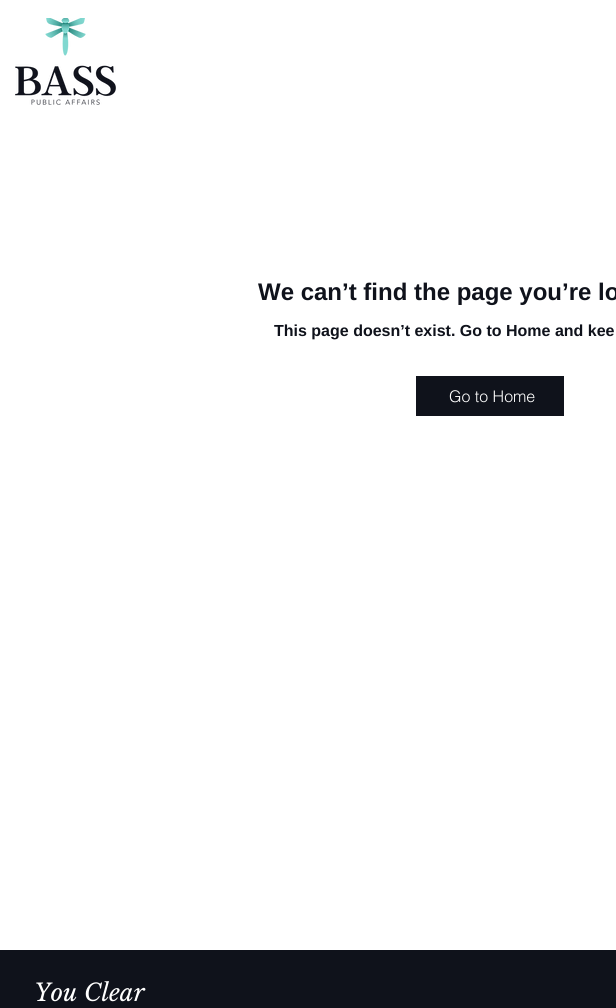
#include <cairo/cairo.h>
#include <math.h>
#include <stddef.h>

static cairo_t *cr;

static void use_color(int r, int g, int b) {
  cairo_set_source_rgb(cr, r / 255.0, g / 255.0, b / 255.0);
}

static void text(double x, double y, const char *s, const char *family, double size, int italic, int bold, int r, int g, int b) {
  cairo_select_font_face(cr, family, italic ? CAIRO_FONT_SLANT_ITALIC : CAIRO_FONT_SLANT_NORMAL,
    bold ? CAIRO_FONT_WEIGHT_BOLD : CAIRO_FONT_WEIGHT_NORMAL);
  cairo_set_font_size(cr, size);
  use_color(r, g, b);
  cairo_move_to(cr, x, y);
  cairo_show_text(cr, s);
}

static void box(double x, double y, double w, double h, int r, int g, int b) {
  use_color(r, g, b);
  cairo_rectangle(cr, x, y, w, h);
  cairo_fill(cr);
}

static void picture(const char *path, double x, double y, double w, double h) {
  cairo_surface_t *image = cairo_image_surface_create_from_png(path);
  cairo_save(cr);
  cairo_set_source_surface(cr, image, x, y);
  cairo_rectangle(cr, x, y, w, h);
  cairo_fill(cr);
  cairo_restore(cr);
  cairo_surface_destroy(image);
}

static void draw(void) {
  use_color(255, 255, 255);
  cairo_paint(cr);
  picture("img_01.png", 15, 18, 101, 87);
  box(416, 376, 148, 40, 15, 18, 27);
  box(0, 950, 616, 58, 15, 18, 27);
  text(258, 300, "We can’t find the page you’re lo", "Liberation Sans", 24, 0, 1, 15, 18, 27);
  text(274, 336, "This page doesn’t exist. Go to Home and kee", "Liberation Sans", 16, 0, 1, 15, 18, 27);
  text(449, 402, "Go to Home", "helvetica Light", 16, 0, 0, 255, 255, 255);
  text(34, 1001, "You Clear", "Libre Baskerville", 24, 1, 0, 255, 255, 255);
}

int main(void) {
  cairo_surface_t *surface = cairo_image_surface_create(CAIRO_FORMAT_RGB24, 616, 1008);
  cr = cairo_create(surface);
  cairo_font_options_t *options = cairo_font_options_create();
  cairo_font_options_set_hint_metrics(options, CAIRO_HINT_METRICS_OFF);
  cairo_font_options_set_hint_style(options, CAIRO_HINT_STYLE_NONE);
  cairo_set_font_options(cr, options);
  cairo_set_miter_limit(cr, 4);
  draw();
  cairo_surface_write_to_png(surface, "out.png");
  cairo_font_options_destroy(options);
  cairo_destroy(cr);
  cairo_surface_destroy(surface);
  return 0;
}
